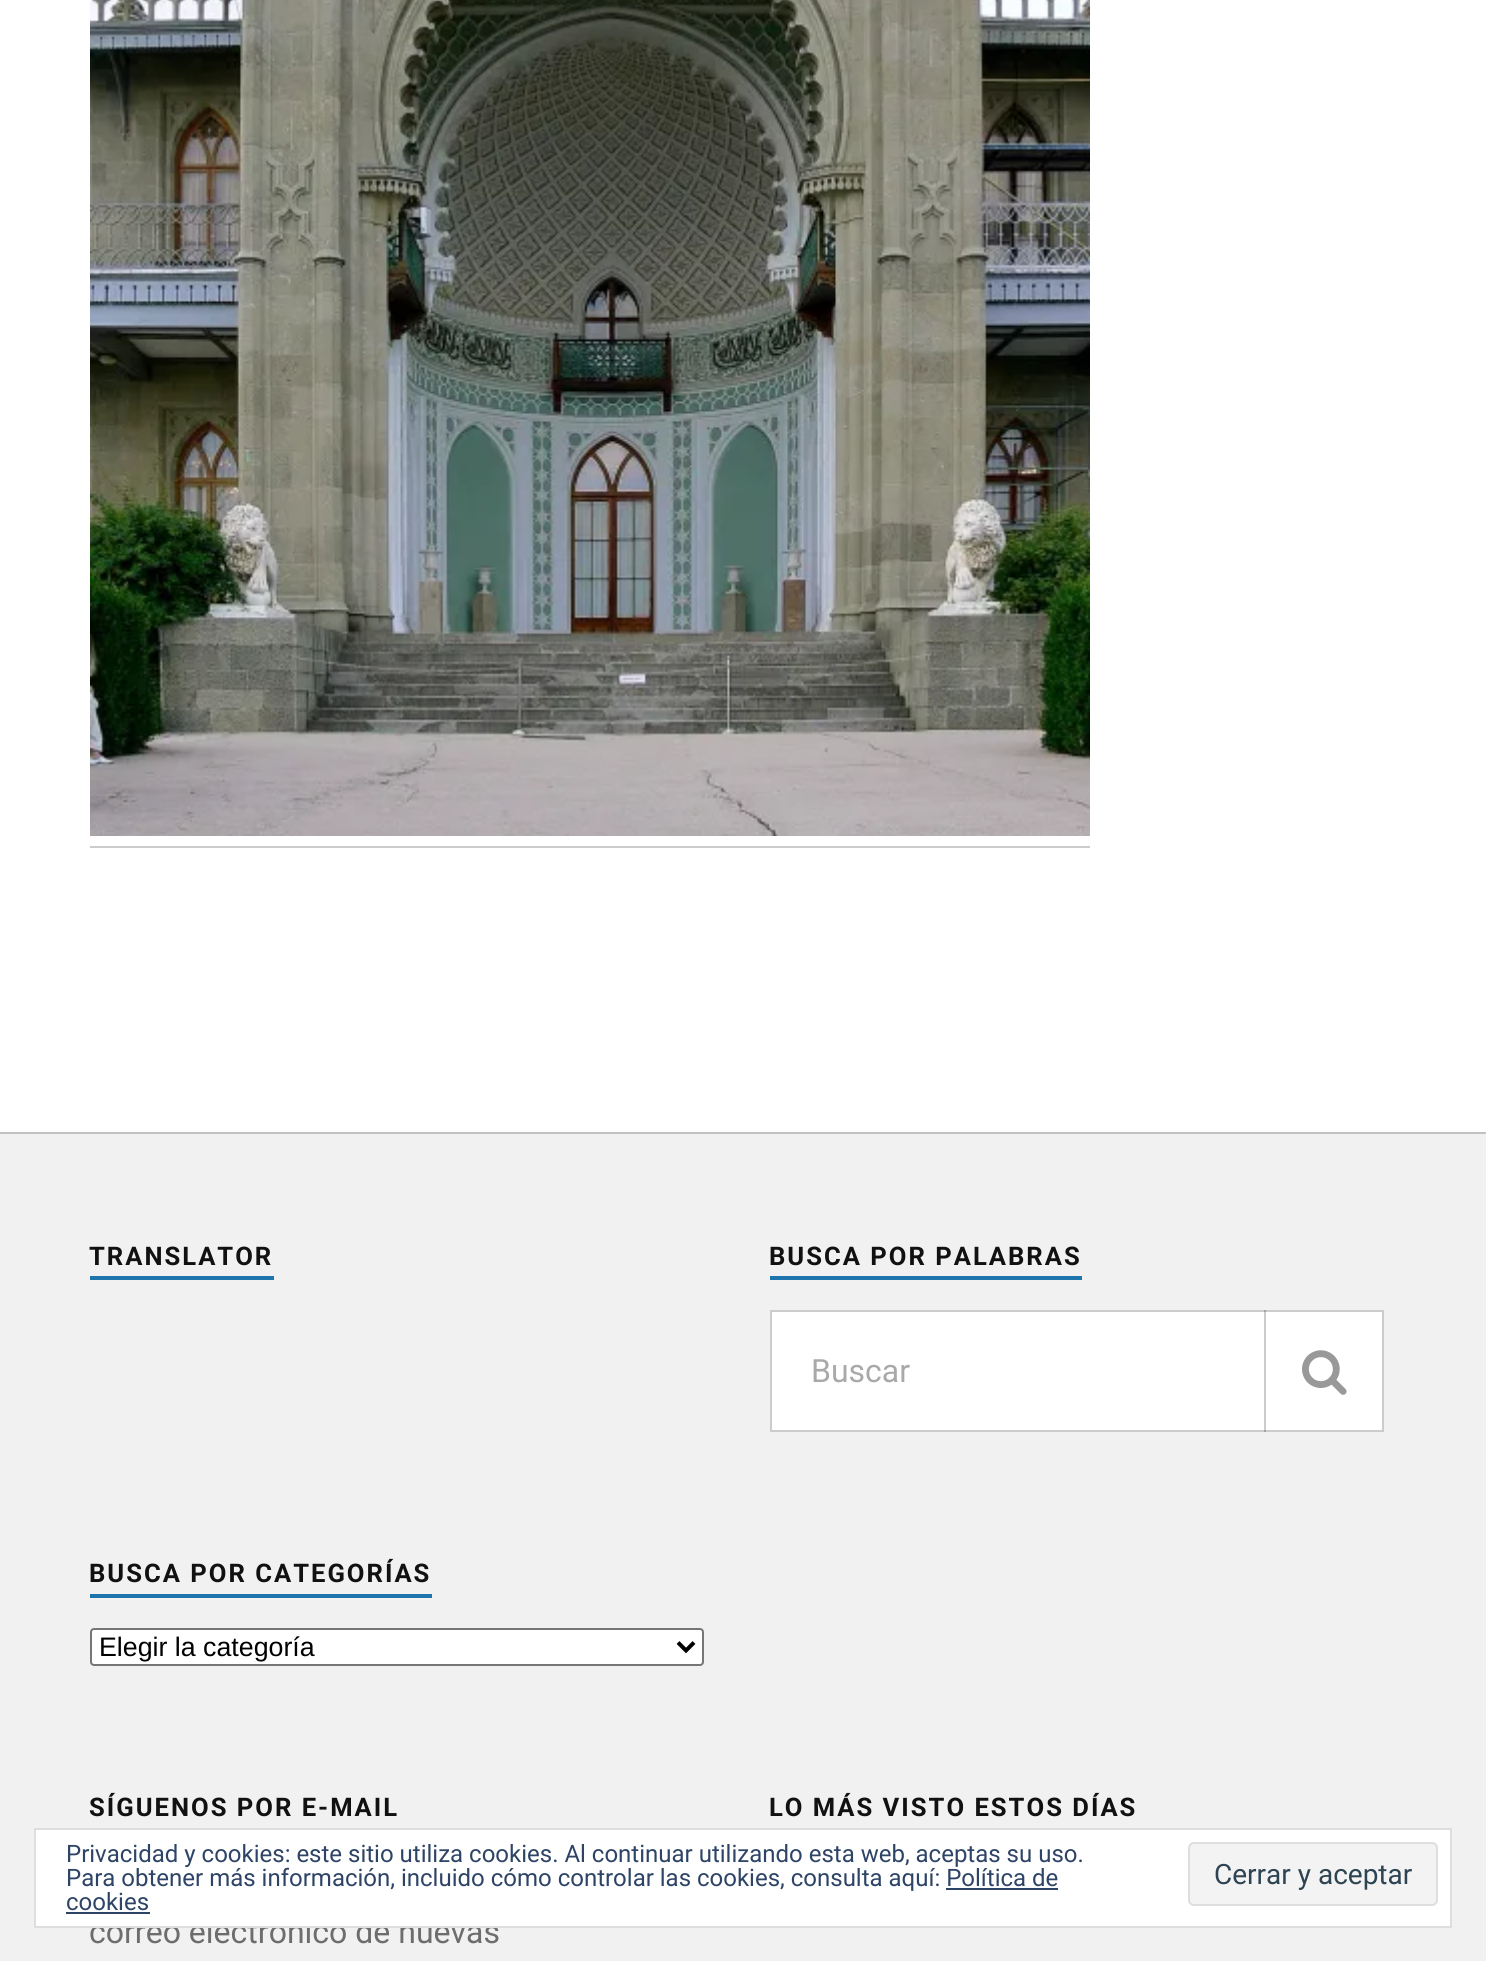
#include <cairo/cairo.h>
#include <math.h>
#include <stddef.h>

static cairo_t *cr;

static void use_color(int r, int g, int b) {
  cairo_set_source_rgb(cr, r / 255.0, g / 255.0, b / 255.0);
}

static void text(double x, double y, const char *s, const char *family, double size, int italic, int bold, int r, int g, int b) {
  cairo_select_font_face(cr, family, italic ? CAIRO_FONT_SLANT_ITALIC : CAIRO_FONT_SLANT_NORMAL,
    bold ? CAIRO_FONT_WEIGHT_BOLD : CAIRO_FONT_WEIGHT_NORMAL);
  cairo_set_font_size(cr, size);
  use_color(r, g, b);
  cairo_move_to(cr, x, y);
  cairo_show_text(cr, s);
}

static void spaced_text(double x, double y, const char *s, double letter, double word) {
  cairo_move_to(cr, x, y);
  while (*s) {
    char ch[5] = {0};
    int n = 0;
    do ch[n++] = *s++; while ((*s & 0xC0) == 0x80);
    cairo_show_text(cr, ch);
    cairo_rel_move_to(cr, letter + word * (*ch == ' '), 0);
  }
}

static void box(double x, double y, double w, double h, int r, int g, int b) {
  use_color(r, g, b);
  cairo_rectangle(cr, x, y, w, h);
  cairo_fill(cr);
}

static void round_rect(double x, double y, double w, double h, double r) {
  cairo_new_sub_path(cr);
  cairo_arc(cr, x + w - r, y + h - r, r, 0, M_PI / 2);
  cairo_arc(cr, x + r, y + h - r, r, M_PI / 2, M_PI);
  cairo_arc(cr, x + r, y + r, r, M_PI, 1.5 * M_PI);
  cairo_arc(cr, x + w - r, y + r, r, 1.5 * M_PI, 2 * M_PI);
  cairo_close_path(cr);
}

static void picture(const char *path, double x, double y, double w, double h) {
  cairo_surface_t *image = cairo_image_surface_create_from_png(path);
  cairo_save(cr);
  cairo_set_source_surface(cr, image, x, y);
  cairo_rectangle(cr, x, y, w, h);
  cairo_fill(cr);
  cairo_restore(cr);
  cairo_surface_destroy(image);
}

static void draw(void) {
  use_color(255, 255, 255);
  cairo_paint(cr);
  picture("img_01.png", 90, 0, 1000, 836);
  box(90, 846, 1000, 2, 204, 204, 204);
  box(0, 1134, 1486, 827, 241, 241, 241);
  box(0, 1132, 1486, 2, 193, 193, 193);
  box(90, 1276, 184, 4, 30, 116, 173);
  box(770, 1276, 312, 4, 30, 116, 173);
  use_color(255, 255, 255);
  cairo_rectangle(cr, 771, 1311, 612, 120);
  cairo_fill_preserve(cr);
  use_color(204, 204, 204);
  cairo_stroke(cr);
  cairo_set_source_rgba(cr, 0, 0, 0, 0.2);
  cairo_rectangle(cr, 1264, 1310, 2, 122);
  cairo_fill(cr);
  picture("img_02.png", 1302, 1350, 45, 45);
  box(90, 1594, 342, 4, 30, 116, 173);
  use_color(255, 255, 255);
  round_rect(91, 1629, 612, 36, 3);
  cairo_fill_preserve(cr);
  use_color(118, 118, 118);
  cairo_stroke(cr);
  cairo_new_path(cr);
  cairo_move_to(cr, 678, 1642.5);
  cairo_line_to(cr, 686, 1650.5);
  cairo_line_to(cr, 694, 1642.5);
  use_color(0, 0, 0);
  cairo_set_line_width(cr, 4);
  cairo_stroke(cr);
  cairo_select_font_face(cr, "Roboto", CAIRO_FONT_SLANT_NORMAL, CAIRO_FONT_WEIGHT_BOLD);
  cairo_set_font_size(cr, 25.6);
  use_color(17, 17, 17);
  spaced_text(89, 1265, "TRANSLATOR", 2, 0);
  spaced_text(769, 1265, "BUSCA POR PALABRAS", 2, 0);
  text(811, 1382, "Buscar", "Roboto", 32, 0, 0, 169, 169, 169);
  cairo_select_font_face(cr, "Roboto", CAIRO_FONT_SLANT_NORMAL, CAIRO_FONT_WEIGHT_BOLD);
  cairo_set_font_size(cr, 25.6);
  use_color(17, 17, 17);
  spaced_text(89, 1582, "BUSCA POR CATEGORÍAS", 2, 0);
  text(99, 1656, "Elegir la categoría", "Liberation Sans", 26.75, 0, 0, 0, 0, 0);
  cairo_select_font_face(cr, "Roboto", CAIRO_FONT_SLANT_NORMAL, CAIRO_FONT_WEIGHT_BOLD);
  cairo_set_font_size(cr, 25.6);
  use_color(17, 17, 17);
  spaced_text(89, 1816, "SÍGUENOS POR E-MAIL", 2, 0);
  text(89, 1943, "correo electrónico de nuevas", "Roboto", 32, 0, 0, 109, 109, 109);
  cairo_select_font_face(cr, "Roboto", CAIRO_FONT_SLANT_NORMAL, CAIRO_FONT_WEIGHT_BOLD);
  cairo_set_font_size(cr, 25.6);
  use_color(17, 17, 17);
  spaced_text(769, 1816, "LO MÁS VISTO ESTOS DÍAS", 2, 0);
  use_color(255, 255, 255);
  cairo_rectangle(cr, 35, 1829, 1416, 98);
  cairo_fill_preserve(cr);
  use_color(222, 222, 222);
  cairo_set_line_width(cr, 2);
  cairo_stroke(cr);
  text(66, 1862, "Privacidad y cookies: este sitio utiliza cookies. Al continuar utilizando esta web, aceptas su uso.", "Roboto", 24, 0, 0, 46, 68, 103);
  text(66, 1886, "Para obtener más información, incluido cómo controlar las cookies, consulta aquí: Política de", "Roboto", 24, 0, 0, 46, 68, 103);
  use_color(243, 243, 243);
  round_rect(1189, 1843, 248, 62, 5);
  cairo_fill_preserve(cr);
  use_color(222, 222, 222);
  cairo_stroke(cr);
  text(1214, 1884, "Cerrar y aceptar", "Roboto", 28, 0, 0, 46, 68, 83);
  text(66, 1910, "cookies", "Roboto", 24, 0, 0, 46, 68, 103);
  box(946, 1888, 112, 2, 46, 68, 103);
  box(66, 1912, 84, 2, 46, 68, 103);
}

int main(void) {
  cairo_surface_t *surface = cairo_image_surface_create(CAIRO_FORMAT_RGB24, 1486, 1961);
  cr = cairo_create(surface);
  cairo_font_options_t *options = cairo_font_options_create();
  cairo_font_options_set_hint_metrics(options, CAIRO_HINT_METRICS_OFF);
  cairo_font_options_set_hint_style(options, CAIRO_HINT_STYLE_NONE);
  cairo_set_font_options(cr, options);
  cairo_set_miter_limit(cr, 4);
  draw();
  cairo_surface_write_to_png(surface, "out.png");
  cairo_font_options_destroy(options);
  cairo_destroy(cr);
  cairo_surface_destroy(surface);
  return 0;
}
